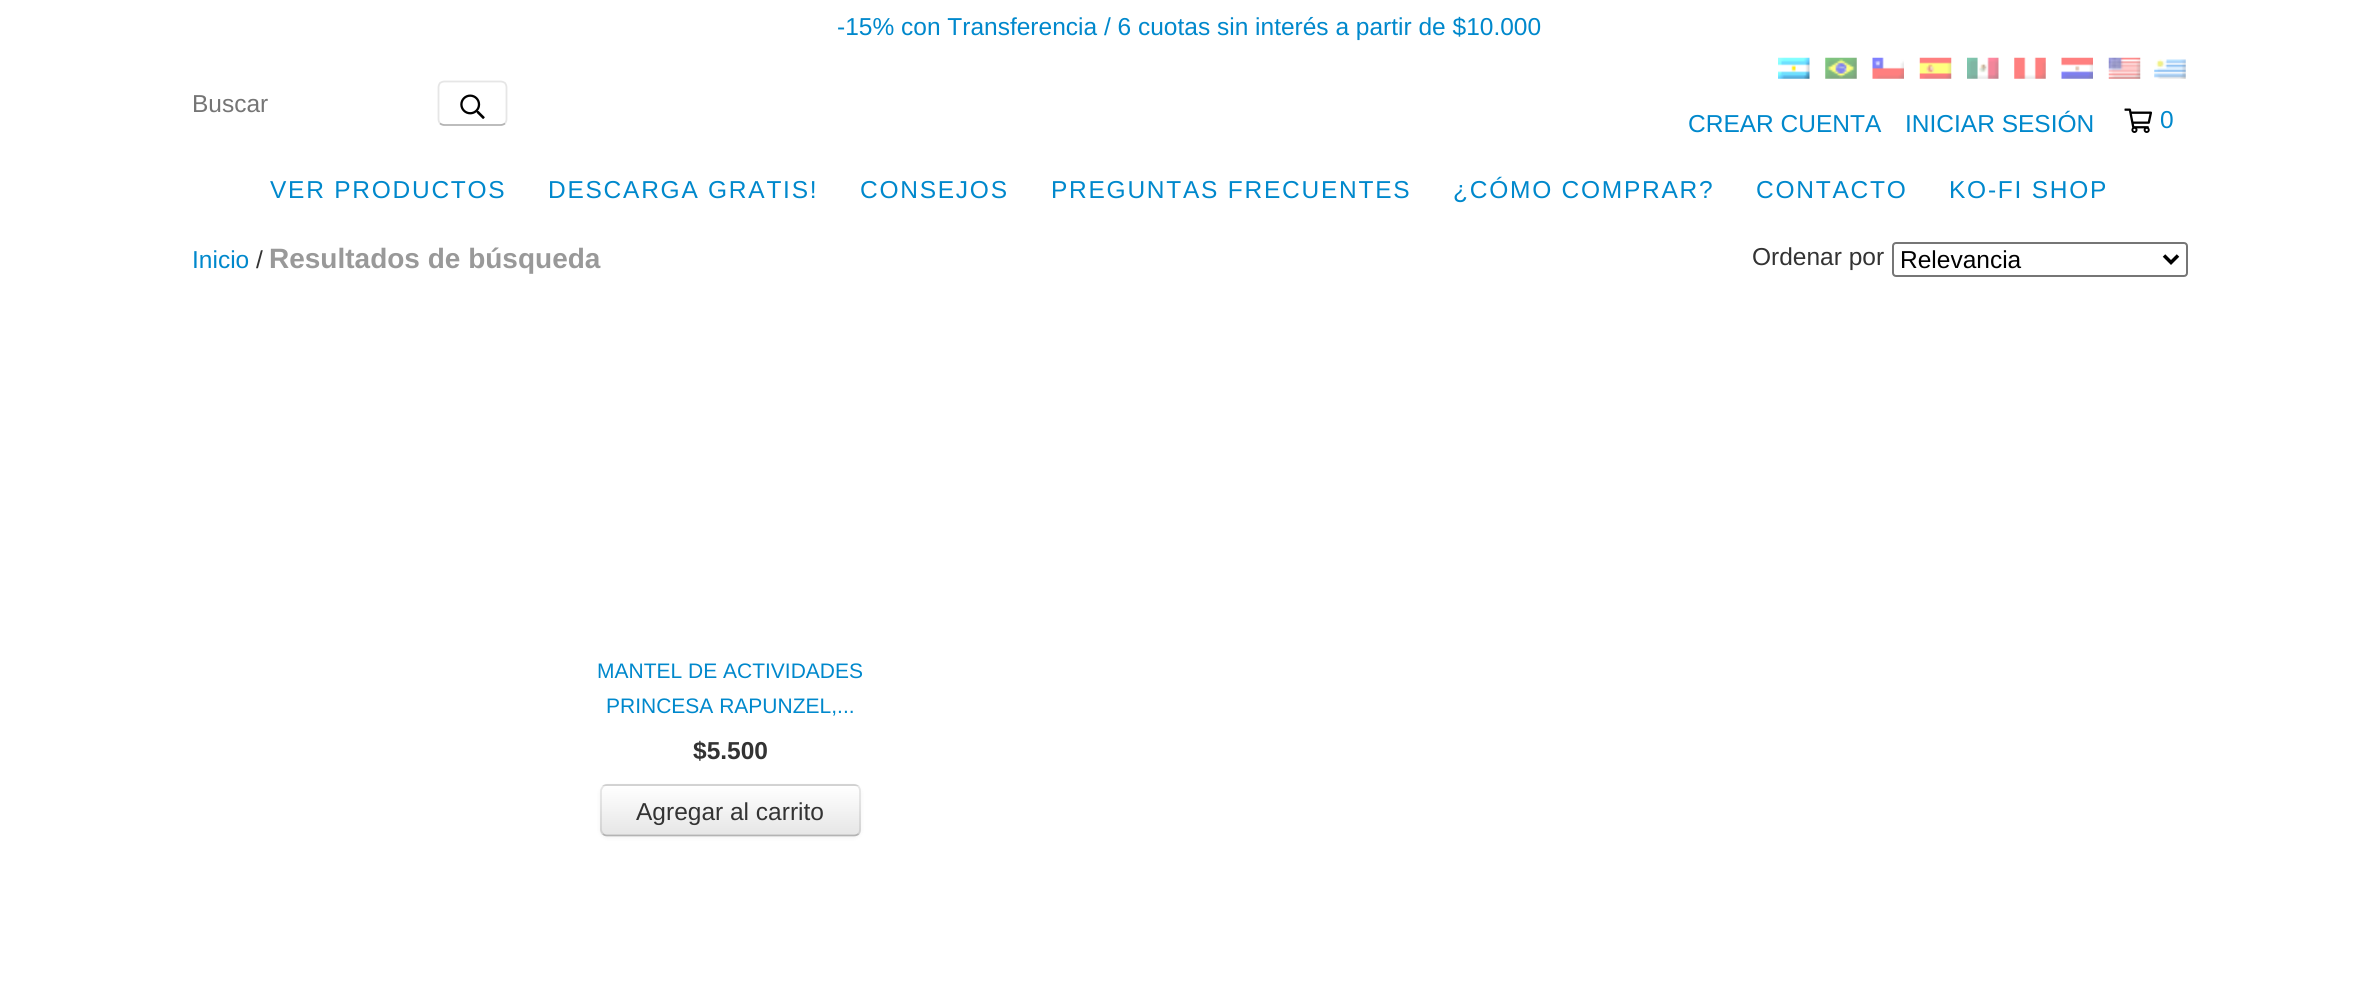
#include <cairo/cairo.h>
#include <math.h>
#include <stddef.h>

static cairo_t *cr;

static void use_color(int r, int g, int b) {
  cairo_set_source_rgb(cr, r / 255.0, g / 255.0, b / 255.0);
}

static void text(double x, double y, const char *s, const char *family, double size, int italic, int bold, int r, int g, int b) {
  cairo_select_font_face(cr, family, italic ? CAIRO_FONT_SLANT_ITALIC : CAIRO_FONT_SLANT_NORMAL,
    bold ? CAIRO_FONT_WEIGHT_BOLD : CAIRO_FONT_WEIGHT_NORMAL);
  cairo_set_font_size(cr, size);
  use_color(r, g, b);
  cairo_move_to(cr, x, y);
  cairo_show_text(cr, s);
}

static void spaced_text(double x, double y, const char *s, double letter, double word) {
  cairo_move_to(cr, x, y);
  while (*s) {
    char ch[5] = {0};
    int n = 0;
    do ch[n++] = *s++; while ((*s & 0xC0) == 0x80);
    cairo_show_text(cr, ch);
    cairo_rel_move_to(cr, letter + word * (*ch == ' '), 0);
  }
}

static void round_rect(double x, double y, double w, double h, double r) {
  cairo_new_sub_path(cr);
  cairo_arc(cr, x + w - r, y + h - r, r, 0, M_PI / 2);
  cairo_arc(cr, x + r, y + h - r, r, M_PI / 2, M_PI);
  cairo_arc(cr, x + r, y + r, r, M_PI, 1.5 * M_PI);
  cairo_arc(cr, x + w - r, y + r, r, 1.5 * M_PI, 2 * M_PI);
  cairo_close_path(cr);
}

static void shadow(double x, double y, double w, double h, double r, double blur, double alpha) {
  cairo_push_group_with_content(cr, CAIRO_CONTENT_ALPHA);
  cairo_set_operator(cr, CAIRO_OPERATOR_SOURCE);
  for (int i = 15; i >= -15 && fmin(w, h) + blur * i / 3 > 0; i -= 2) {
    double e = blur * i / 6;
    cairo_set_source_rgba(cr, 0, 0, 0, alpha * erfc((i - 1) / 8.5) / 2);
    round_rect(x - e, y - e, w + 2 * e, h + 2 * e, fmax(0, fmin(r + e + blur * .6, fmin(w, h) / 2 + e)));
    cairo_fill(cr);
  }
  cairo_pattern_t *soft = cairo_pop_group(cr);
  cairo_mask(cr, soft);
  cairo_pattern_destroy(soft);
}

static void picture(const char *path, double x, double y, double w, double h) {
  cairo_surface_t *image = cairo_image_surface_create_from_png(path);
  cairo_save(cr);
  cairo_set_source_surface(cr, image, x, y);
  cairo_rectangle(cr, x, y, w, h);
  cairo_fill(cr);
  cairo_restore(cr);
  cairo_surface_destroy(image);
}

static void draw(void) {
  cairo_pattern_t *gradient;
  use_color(255, 255, 255);
  cairo_paint(cr);
  cairo_new_path(cr);
  cairo_move_to(cr, 505, 123.5);
  cairo_curve_to(cr, 503.5, 124.5, 502, 125, 500.5, 125);
  cairo_line_to(cr, 444.5, 125);
  cairo_curve_to(cr, 443, 125, 441.5, 124.5, 440, 123.5);
  use_color(179, 179, 179);
  cairo_set_line_width(cr, 1.8);
  cairo_stroke(cr);
  cairo_new_path(cr);
  cairo_move_to(cr, 440, 123.5);
  cairo_curve_to(cr, 439, 122, 438.5, 120.5, 438.5, 119);
  cairo_line_to(cr, 438.5, 87.5);
  cairo_curve_to(cr, 438.5, 86, 439, 84.5, 440, 83);
  cairo_curve_to(cr, 441.5, 82, 443, 81.5, 444.5, 81.5);
  cairo_line_to(cr, 500.5, 81.5);
  cairo_curve_to(cr, 502, 81.5, 503.5, 82, 505, 83);
  cairo_curve_to(cr, 506, 84.5, 506.5, 86, 506.5, 87.5);
  cairo_line_to(cr, 506.5, 119);
  cairo_curve_to(cr, 506.5, 120.5, 506, 122, 505, 123.5);
  cairo_set_source_rgba(cr, 0, 0, 0, 0.1);
  cairo_stroke(cr);
  picture("img_01.png", 460, 94, 25, 25);
  picture("img_02.png", 1778, 57, 32, 22);
  picture("img_03.png", 1825, 57, 32, 22);
  picture("img_04.png", 1872, 57, 32, 22);
  picture("img_05.png", 1919, 57, 33, 22);
  picture("img_06.png", 1967, 57, 32, 22);
  picture("img_07.png", 2014, 57, 32, 22);
  picture("img_08.png", 2061, 57, 32, 22);
  picture("img_09.png", 2108, 57, 33, 22);
  picture("img_10.png", 2154, 59, 32, 20);
  picture("img_11.png", 2124, 108, 28, 25);
  round_rect(1893, 243, 294, 33, 3);
  use_color(118, 118, 118);
  cairo_set_line_width(cr, 2);
  cairo_stroke(cr);
  cairo_new_path(cr);
  cairo_move_to(cr, 2164, 255.5);
  cairo_line_to(cr, 2171, 262.5);
  cairo_line_to(cr, 2178, 255.5);
  use_color(0, 0, 0);
  cairo_set_line_width(cr, 3.5);
  cairo_stroke(cr);
  use_color(0, 0, 0);
  shadow(600, 786, 261, 52, 7, 2, 0.05);
  cairo_save(cr);
  round_rect(600, 784, 261, 53, 7);
  cairo_clip(cr);
  gradient = cairo_pattern_create_linear(731, 737, 731, 786);
  cairo_pattern_add_color_stop_rgba(gradient, 0, 1, 1, 1, 1);
  cairo_pattern_add_color_stop_rgba(gradient, 1, 0.902, 0.902, 0.902, 1);
  cairo_set_source(cr, gradient);
  cairo_pattern_destroy(gradient);
  cairo_rectangle(cr, 600, 784, 261, 2);
  cairo_fill(cr);
  gradient = cairo_pattern_create_linear(731, 786, 731, 835);
  cairo_pattern_add_color_stop_rgba(gradient, 0, 1, 1, 1, 1);
  cairo_pattern_add_color_stop_rgba(gradient, 1, 0.902, 0.902, 0.902, 1);
  cairo_set_source(cr, gradient);
  cairo_pattern_destroy(gradient);
  cairo_rectangle(cr, 600, 786, 261, 49);
  cairo_fill(cr);
  gradient = cairo_pattern_create_linear(731, 835, 731, 884);
  cairo_pattern_add_color_stop_rgba(gradient, 0, 1, 1, 1, 1);
  cairo_pattern_add_color_stop_rgba(gradient, 1, 0.902, 0.902, 0.902, 1);
  cairo_set_source(cr, gradient);
  cairo_pattern_destroy(gradient);
  cairo_rectangle(cr, 600, 835, 261, 2);
  cairo_fill(cr);
  cairo_restore(cr);
  cairo_new_path(cr);
  cairo_move_to(cr, 858.5, 834);
  cairo_curve_to(cr, 857, 835, 855.5, 835.5, 854, 835.5);
  cairo_line_to(cr, 607, 835.5);
  cairo_curve_to(cr, 605.5, 835.5, 604, 835, 603, 834);
  use_color(179, 179, 179);
  cairo_set_line_width(cr, 1.8);
  cairo_stroke(cr);
  cairo_new_path(cr);
  cairo_move_to(cr, 603, 834);
  cairo_curve_to(cr, 602, 832.5, 601, 831, 601, 829.5);
  cairo_line_to(cr, 601, 791);
  cairo_curve_to(cr, 601, 789.5, 602, 788, 603, 786.5);
  cairo_curve_to(cr, 604, 785.5, 605.5, 785, 607, 785);
  cairo_line_to(cr, 854, 785);
  cairo_curve_to(cr, 855.5, 785, 857, 785.5, 858.5, 786.5);
  cairo_curve_to(cr, 859.5, 788, 860, 789.5, 860, 791);
  cairo_line_to(cr, 860, 829.5);
  cairo_curve_to(cr, 860, 831, 859.5, 832.5, 858.5, 834);
  cairo_set_source_rgba(cr, 0, 0, 0, 0.1);
  cairo_stroke(cr);
  text(837, 35, "-15% con Transferencia / 6 cuotas sin interés a partir de $10.000", "Liberation Sans", 24.5, 0, 0, 0, 136, 204);
  text(192, 112, "Buscar", "Liberation Sans", 24.5, 0, 0, 117, 117, 117);
  text(1688, 132, "CREAR CUENTA", "Liberation Sans", 24.5, 0, 0, 0, 136, 204);
  text(1905, 132, "INICIAR SESIÓN", "Liberation Sans", 24.5, 0, 0, 0, 136, 204);
  spaced_text(2160, 128, "0", 1.75, 0);
  spaced_text(270, 198, "VER PRODUCTOS", 1.75, 0);
  spaced_text(548, 198, "DESCARGA GRATIS!", 1.75, 0);
  spaced_text(860, 198, "CONSEJOS", 1.75, 0);
  spaced_text(1051, 198, "PREGUNTAS FRECUENTES", 1.75, 0);
  spaced_text(1453, 198, "¿CÓMO COMPRAR?", 1.75, 0);
  spaced_text(1756, 198, "CONTACTO", 1.75, 0);
  spaced_text(1949, 198, "KO-FI SHOP", 1.75, 0);
  text(192, 268, "Inicio", "Liberation Sans", 24.5, 0, 0, 0, 136, 204);
  text(256, 268, "/", "Liberation Sans", 24.5, 0, 0, 51, 51, 51);
  text(269, 268, "Resultados de búsqueda", "Liberation Sans", 28, 0, 1, 153, 153, 153);
  text(1752, 265, "Ordenar por", "Liberation Sans", 24.5, 0, 0, 51, 51, 51);
  text(1900, 268, "Relevancia", "Liberation Sans", 24.5, 0, 0, 0, 0, 0);
  text(597, 678, "MANTEL DE ACTIVIDADES", "Liberation Sans", 21, 0, 0, 0, 136, 204);
  text(606, 713, "PRINCESA RAPUNZEL,...", "Liberation Sans", 21, 0, 0, 0, 136, 204);
  text(693, 759, "$5.500", "Liberation Sans", 24.5, 0, 1, 51, 51, 51);
  text(636, 820, "Agregar al carrito", "Liberation Sans", 24.5, 0, 0, 51, 51, 51);
}

int main(void) {
  cairo_surface_t *surface = cairo_image_surface_create(CAIRO_FORMAT_RGB24, 2378, 982);
  cr = cairo_create(surface);
  cairo_font_options_t *options = cairo_font_options_create();
  cairo_font_options_set_hint_metrics(options, CAIRO_HINT_METRICS_OFF);
  cairo_font_options_set_hint_style(options, CAIRO_HINT_STYLE_NONE);
  cairo_set_font_options(cr, options);
  cairo_set_miter_limit(cr, 4);
  draw();
  cairo_surface_write_to_png(surface, "out.png");
  cairo_font_options_destroy(options);
  cairo_destroy(cr);
  cairo_surface_destroy(surface);
  return 0;
}
